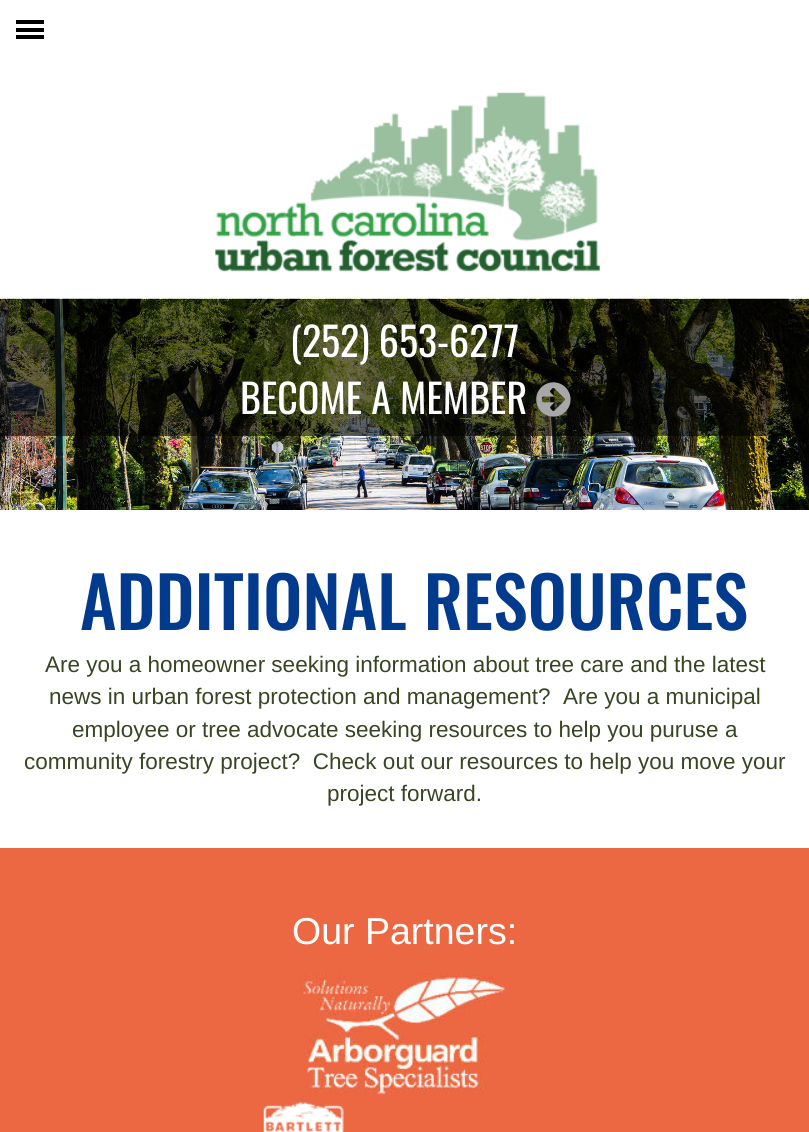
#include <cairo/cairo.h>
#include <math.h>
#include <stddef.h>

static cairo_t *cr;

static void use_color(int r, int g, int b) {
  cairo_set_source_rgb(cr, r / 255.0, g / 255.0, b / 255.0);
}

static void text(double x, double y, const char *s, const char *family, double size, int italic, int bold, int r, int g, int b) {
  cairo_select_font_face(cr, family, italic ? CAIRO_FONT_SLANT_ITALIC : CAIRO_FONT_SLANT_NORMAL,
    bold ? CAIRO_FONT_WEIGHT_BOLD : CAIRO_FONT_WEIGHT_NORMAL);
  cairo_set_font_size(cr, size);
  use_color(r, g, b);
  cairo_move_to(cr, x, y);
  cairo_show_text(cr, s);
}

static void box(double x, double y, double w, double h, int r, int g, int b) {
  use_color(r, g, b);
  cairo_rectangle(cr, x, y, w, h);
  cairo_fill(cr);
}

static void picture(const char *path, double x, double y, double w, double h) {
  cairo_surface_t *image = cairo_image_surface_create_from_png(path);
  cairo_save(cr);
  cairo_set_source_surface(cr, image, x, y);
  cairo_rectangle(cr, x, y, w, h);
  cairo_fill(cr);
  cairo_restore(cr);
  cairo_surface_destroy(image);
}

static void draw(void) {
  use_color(255, 255, 255);
  cairo_paint(cr);
  box(16, 20, 28, 4, 0, 0, 0);
  box(16, 28, 28, 4, 0, 0, 0);
  box(16, 35, 28, 4, 0, 0, 0);
  picture("img_01.png", 215, 92, 385, 180);
  picture("img_02.png", 0, 298, 809, 212);
  cairo_set_source_rgba(cr, 0, 0, 0, 0.57);
  cairo_rectangle(cr, 0, 299, 809, 137);
  cairo_fill(cr);
  picture("img_03.png", 536, 382, 35, 35);
  box(0, 848, 809, 284, 236, 104, 66);
  picture("img_04.png", 296, 973, 210, 121);
  picture("img_05.png", 263, 1102, 81, 30);
  text(290, 357, "(252) 653-6277", "Oswald", 40, 0, 0, 255, 255, 255);
  text(240, 414, "BECOME A MEMBER", "Oswald", 40, 0, 0, 255, 255, 255);
  text(80, 630, "ADDITIONAL RESOURCES", "Oswald Medium", 70, 0, 0, 2, 58, 141);
  text(45, 672, "Are you a homeowner seeking information about tree care and the latest", "Liberation Sans", 22.5, 0, 0, 56, 69, 34);
  text(49, 704, "news in urban forest protection and management?  Are you a municipal", "Liberation Sans", 22.5, 0, 0, 56, 69, 34);
  text(72, 737, "employee or tree advocate seeking resources to help you puruse a", "Liberation Sans", 22.5, 0, 0, 56, 69, 34);
  text(24, 769, "community forestry project?  Check out our resources to help you move your", "Liberation Sans", 22.5, 0, 0, 56, 69, 34);
  text(327, 801, "project forward.", "Liberation Sans", 22.5, 0, 0, 56, 69, 34);
  text(292, 944, "Our Partners:", "Liberation Sans", 37.5, 0, 0, 255, 255, 255);
}

int main(void) {
  cairo_surface_t *surface = cairo_image_surface_create(CAIRO_FORMAT_RGB24, 809, 1132);
  cr = cairo_create(surface);
  cairo_font_options_t *options = cairo_font_options_create();
  cairo_font_options_set_hint_metrics(options, CAIRO_HINT_METRICS_OFF);
  cairo_font_options_set_hint_style(options, CAIRO_HINT_STYLE_NONE);
  cairo_set_font_options(cr, options);
  cairo_set_miter_limit(cr, 4);
  draw();
  cairo_surface_write_to_png(surface, "out.png");
  cairo_font_options_destroy(options);
  cairo_destroy(cr);
  cairo_surface_destroy(surface);
  return 0;
}
